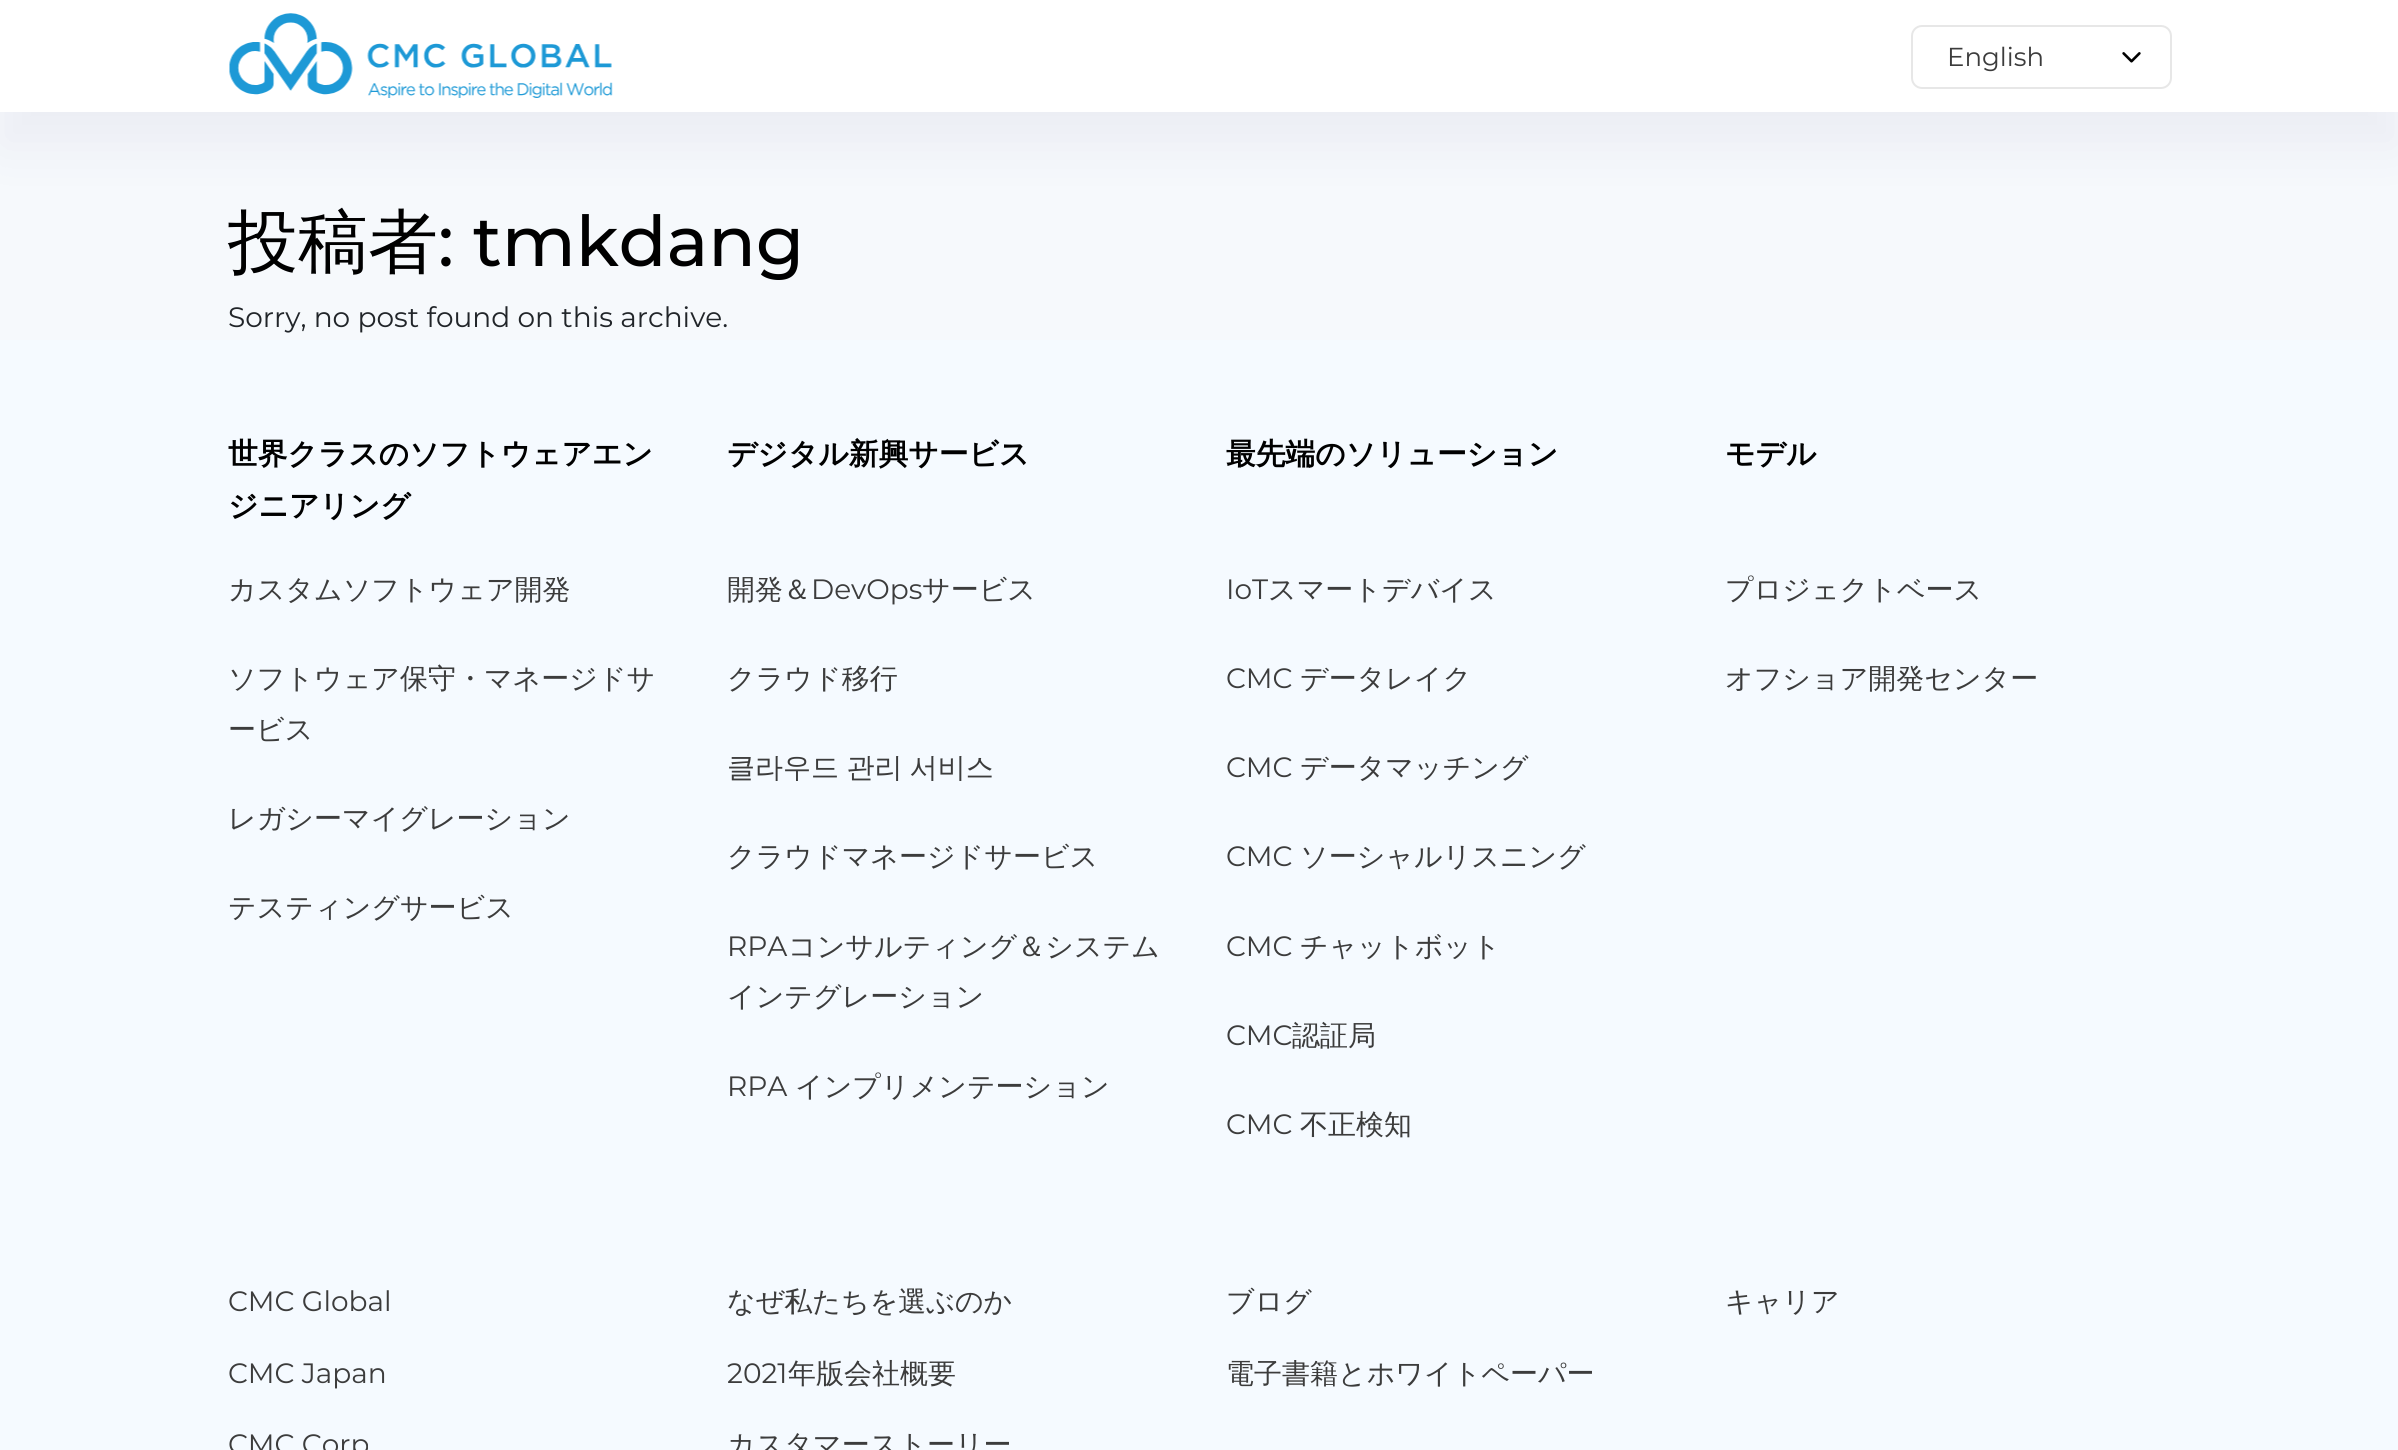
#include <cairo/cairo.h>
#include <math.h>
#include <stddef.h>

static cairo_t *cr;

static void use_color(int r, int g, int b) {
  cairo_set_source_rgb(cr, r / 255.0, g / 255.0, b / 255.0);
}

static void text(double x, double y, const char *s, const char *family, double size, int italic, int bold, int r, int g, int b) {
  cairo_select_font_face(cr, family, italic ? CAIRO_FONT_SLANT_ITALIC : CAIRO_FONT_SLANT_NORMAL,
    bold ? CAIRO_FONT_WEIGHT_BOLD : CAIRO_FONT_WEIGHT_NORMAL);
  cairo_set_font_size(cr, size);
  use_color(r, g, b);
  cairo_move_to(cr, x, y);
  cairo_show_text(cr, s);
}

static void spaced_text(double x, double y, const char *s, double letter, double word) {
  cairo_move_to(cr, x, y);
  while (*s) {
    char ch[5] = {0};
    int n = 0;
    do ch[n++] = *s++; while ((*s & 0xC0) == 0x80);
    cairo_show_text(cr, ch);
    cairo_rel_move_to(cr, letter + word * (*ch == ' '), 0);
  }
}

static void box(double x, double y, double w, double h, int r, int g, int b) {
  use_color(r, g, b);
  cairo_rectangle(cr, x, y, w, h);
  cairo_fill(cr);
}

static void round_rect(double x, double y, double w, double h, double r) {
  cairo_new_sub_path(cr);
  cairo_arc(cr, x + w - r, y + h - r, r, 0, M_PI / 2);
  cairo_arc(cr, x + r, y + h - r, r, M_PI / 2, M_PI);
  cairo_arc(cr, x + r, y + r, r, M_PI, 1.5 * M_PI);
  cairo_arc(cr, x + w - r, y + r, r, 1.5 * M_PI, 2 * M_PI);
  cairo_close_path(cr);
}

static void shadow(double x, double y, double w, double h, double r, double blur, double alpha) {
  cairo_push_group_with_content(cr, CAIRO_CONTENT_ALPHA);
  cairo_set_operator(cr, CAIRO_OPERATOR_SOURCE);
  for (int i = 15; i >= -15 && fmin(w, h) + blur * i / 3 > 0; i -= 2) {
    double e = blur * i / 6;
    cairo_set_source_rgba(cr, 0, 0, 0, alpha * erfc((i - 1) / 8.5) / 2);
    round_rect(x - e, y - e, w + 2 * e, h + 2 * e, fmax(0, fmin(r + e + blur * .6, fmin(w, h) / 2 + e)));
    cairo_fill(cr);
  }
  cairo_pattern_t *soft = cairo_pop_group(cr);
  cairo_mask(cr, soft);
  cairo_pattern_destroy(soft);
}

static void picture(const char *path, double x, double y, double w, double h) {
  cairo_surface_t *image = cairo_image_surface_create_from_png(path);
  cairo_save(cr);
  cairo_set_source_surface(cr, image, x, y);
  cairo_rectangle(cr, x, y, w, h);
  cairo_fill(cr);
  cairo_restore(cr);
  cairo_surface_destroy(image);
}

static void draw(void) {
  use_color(246, 249, 252);
  cairo_paint(cr);
  use_color(28, 9, 80);
  shadow(0, 35, 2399, 112, 0, 26, 0.05);
  box(0, 0, 2398, 112, 255, 255, 255);
  picture("img_01.png", 229, 13, 384, 85);
  round_rect(1912, 26, 259, 62, 10);
  use_color(231, 231, 231);
  cairo_stroke(cr);
  picture("img_02.png", 2122, 52, 19, 11);
  box(0, 340, 2398, 1110, 245, 250, 255);
  text(1947, 66, "English", "Montserrat", 26, 0, 0, 60, 60, 60);
  text(228, 266, "投稿者", "WenQuanYi Zen Hei Medium", 70, 0, 0, 0, 0, 0);
  text(438, 266, ": tmkdang", "Montserrat Medium", 70, 0, 0, 0, 0, 0);
  text(228, 327, "Sorry, no post found on this archive.", "Montserrat", 28, 0, 0, 33, 37, 41);
  text(228, 464, "世界クラスのソフトウェアエン", "WenQuanYi Zen Hei", 29.75, 0, 1, 0, 0, 0);
  text(228, 516, "ジニアリング", "WenQuanYi Zen Hei", 29.75, 0, 1, 0, 0, 0);
  text(228, 599, "カスタムソフトウェア開発", "WenQuanYi Zen Hei Medium", 28, 0, 0, 60, 60, 60);
  text(228, 688, "ソフトウェア保守・マネージドサ", "WenQuanYi Zen Hei Medium", 28, 0, 0, 60, 60, 60);
  text(228, 739, "ービス", "WenQuanYi Zen Hei Medium", 28, 0, 0, 60, 60, 60);
  text(228, 828, "レガシーマイグレーション", "WenQuanYi Zen Hei Medium", 28, 0, 0, 60, 60, 60);
  text(228, 917, "テスティングサービス", "WenQuanYi Zen Hei Medium", 28, 0, 0, 60, 60, 60);
  text(727, 464, "デジタル新興サービス", "WenQuanYi Zen Hei", 29.75, 0, 1, 0, 0, 0);
  text(727, 599, "開発＆", "WenQuanYi Zen Hei Medium", 28, 0, 0, 60, 60, 60);
  text(811, 599, "DevOps", "Montserrat", 28, 0, 0, 60, 60, 60);
  text(922, 599, "サービス", "WenQuanYi Zen Hei Medium", 28, 0, 0, 60, 60, 60);
  text(727, 688, "クラウド移行", "WenQuanYi Zen Hei Medium", 28, 0, 0, 60, 60, 60);
  spaced_text(727, 777, "클라우드 관리 서비스", 0, -1);
  text(727, 866, "クラウドマネージドサービス", "WenQuanYi Zen Hei Medium", 28, 0, 0, 60, 60, 60);
  text(727, 956, "RPA", "Montserrat", 28, 0, 0, 60, 60, 60);
  text(788, 956, "コンサルティング＆システム", "WenQuanYi Zen Hei Medium", 28, 0, 0, 60, 60, 60);
  text(727, 1006, "インテグレーション", "WenQuanYi Zen Hei Medium", 28, 0, 0, 60, 60, 60);
  text(727, 1096, "RPA", "Montserrat", 28, 0, 0, 60, 60, 60);
  text(795, 1096, "インプリメンテーション", "WenQuanYi Zen Hei Medium", 28, 0, 0, 60, 60, 60);
  text(1226, 464, "最先端のソリューション", "WenQuanYi Zen Hei", 29.75, 0, 1, 0, 0, 0);
  text(1226, 599, "IoT", "Montserrat", 28, 0, 0, 60, 60, 60);
  text(1268, 599, "スマートデバイス", "WenQuanYi Zen Hei Medium", 28, 0, 0, 60, 60, 60);
  text(1226, 688, "CMC", "Montserrat", 28, 0, 0, 60, 60, 60);
  text(1300, 688, "データレイク", "WenQuanYi Zen Hei Medium", 28, 0, 0, 60, 60, 60);
  text(1226, 777, "CMC", "Montserrat", 28, 0, 0, 60, 60, 60);
  text(1300, 777, "データマッチング", "WenQuanYi Zen Hei Medium", 28, 0, 0, 60, 60, 60);
  text(1226, 866, "CMC", "Montserrat", 28, 0, 0, 60, 60, 60);
  text(1300, 866, "ソーシャルリスニング", "WenQuanYi Zen Hei Medium", 28, 0, 0, 60, 60, 60);
  text(1226, 956, "CMC", "Montserrat", 28, 0, 0, 60, 60, 60);
  text(1300, 956, "チャットボット", "WenQuanYi Zen Hei Medium", 28, 0, 0, 60, 60, 60);
  text(1226, 1045, "CMC", "Montserrat", 28, 0, 0, 60, 60, 60);
  text(1292, 1045, "認証局", "WenQuanYi Zen Hei Medium", 28, 0, 0, 60, 60, 60);
  text(1226, 1134, "CMC", "Montserrat", 28, 0, 0, 60, 60, 60);
  text(1300, 1134, "不正検知", "WenQuanYi Zen Hei Medium", 28, 0, 0, 60, 60, 60);
  text(1725, 464, "モデル", "WenQuanYi Zen Hei", 29.75, 0, 1, 0, 0, 0);
  text(1725, 599, "プロジェクトベース", "WenQuanYi Zen Hei Medium", 28, 0, 0, 60, 60, 60);
  text(1725, 688, "オフショア開発センター", "WenQuanYi Zen Hei Medium", 28, 0, 0, 60, 60, 60);
  text(228, 1311, "CMC Global", "Montserrat", 28, 0, 0, 60, 60, 60);
  text(228, 1383, "CMC Japan", "Montserrat", 28, 0, 0, 60, 60, 60);
  text(228, 1454, "CMC Corp", "Montserrat", 28, 0, 0, 60, 60, 60);
  text(727, 1311, "なぜ私たちを選ぶのか", "WenQuanYi Zen Hei Medium", 28, 0, 0, 60, 60, 60);
  text(727, 1383, "2021", "Montserrat", 28, 0, 0, 60, 60, 60);
  text(788, 1383, "年版会社概要", "WenQuanYi Zen Hei Medium", 28, 0, 0, 60, 60, 60);
  text(727, 1454, "カスタマーストーリー", "WenQuanYi Zen Hei Medium", 28, 0, 0, 60, 60, 60);
  text(1226, 1311, "ブログ", "WenQuanYi Zen Hei Medium", 28, 0, 0, 60, 60, 60);
  text(1226, 1383, "電子書籍とホワイトペーパー", "WenQuanYi Zen Hei Medium", 28, 0, 0, 60, 60, 60);
  text(1725, 1311, "キャリア", "WenQuanYi Zen Hei Medium", 28, 0, 0, 60, 60, 60);
}

int main(void) {
  cairo_surface_t *surface = cairo_image_surface_create(CAIRO_FORMAT_RGB24, 2398, 1450);
  cr = cairo_create(surface);
  cairo_font_options_t *options = cairo_font_options_create();
  cairo_font_options_set_hint_metrics(options, CAIRO_HINT_METRICS_OFF);
  cairo_font_options_set_hint_style(options, CAIRO_HINT_STYLE_NONE);
  cairo_set_font_options(cr, options);
  cairo_set_miter_limit(cr, 4);
  draw();
  cairo_surface_write_to_png(surface, "out.png");
  cairo_font_options_destroy(options);
  cairo_destroy(cr);
  cairo_surface_destroy(surface);
  return 0;
}
